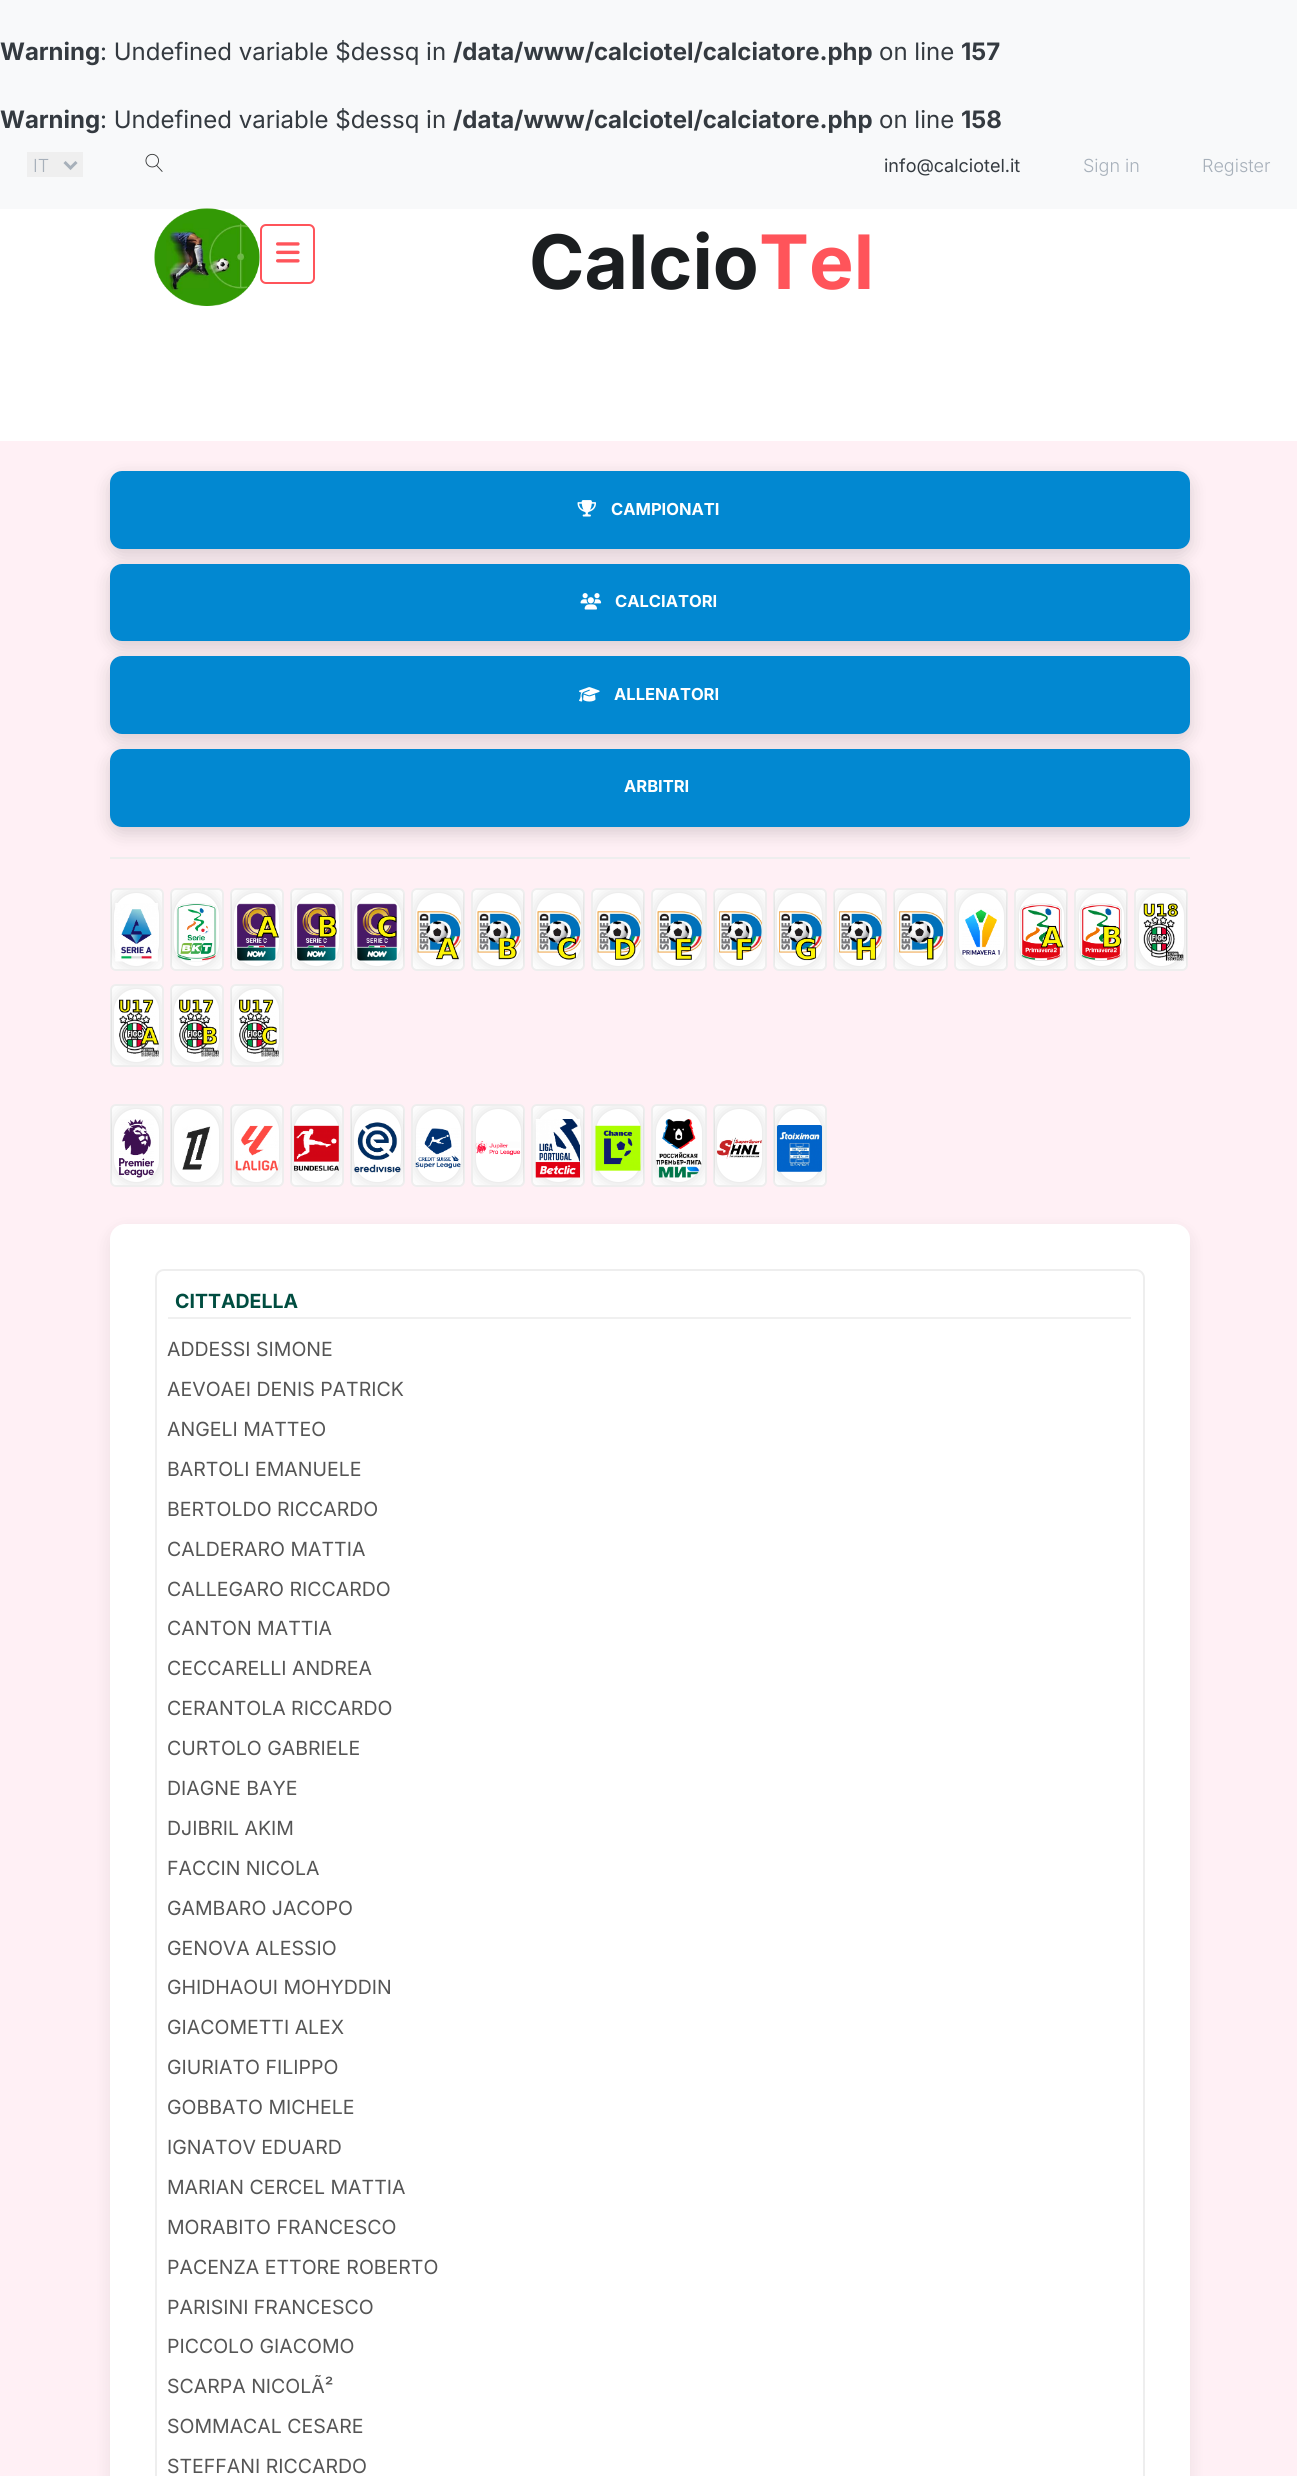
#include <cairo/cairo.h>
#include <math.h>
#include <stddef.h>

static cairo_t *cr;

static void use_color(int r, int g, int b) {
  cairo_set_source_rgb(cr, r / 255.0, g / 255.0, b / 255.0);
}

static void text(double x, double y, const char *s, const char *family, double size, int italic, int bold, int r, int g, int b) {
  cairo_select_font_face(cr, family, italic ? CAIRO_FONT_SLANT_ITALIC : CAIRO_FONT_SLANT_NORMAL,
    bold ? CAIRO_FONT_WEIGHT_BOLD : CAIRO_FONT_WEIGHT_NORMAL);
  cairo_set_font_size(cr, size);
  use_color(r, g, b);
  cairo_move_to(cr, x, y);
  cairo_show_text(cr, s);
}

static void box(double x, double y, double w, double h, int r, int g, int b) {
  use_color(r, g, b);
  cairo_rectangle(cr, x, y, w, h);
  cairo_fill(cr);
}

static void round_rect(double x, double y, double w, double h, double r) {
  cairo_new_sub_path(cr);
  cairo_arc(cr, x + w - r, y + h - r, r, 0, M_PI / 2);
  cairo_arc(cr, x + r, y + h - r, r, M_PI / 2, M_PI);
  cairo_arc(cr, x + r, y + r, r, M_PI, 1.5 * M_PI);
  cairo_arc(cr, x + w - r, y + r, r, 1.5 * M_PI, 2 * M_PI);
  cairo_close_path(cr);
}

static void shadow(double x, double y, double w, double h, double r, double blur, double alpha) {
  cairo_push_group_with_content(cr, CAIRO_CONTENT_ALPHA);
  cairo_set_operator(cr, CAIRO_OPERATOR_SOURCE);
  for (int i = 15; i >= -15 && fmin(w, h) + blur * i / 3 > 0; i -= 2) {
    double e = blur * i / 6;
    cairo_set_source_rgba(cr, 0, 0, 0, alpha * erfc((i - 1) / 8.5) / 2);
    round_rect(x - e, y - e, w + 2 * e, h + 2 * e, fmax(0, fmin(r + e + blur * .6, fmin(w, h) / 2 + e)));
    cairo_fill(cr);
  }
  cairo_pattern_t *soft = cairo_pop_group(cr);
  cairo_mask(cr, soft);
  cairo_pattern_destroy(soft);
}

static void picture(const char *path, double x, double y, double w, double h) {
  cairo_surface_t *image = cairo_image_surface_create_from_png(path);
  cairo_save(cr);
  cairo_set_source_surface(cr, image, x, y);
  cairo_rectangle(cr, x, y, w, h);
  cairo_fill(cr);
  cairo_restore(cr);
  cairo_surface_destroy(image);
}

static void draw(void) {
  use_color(248, 249, 250);
  cairo_paint(cr);
  box(27, 152, 56, 25, 239, 239, 239);
  cairo_new_path(cr);
  cairo_move_to(cr, 64.5, 162);
  cairo_line_to(cr, 70.5, 168);
  cairo_line_to(cr, 76.5, 162);
  use_color(167, 176, 186);
  cairo_set_line_width(cr, 3);
  cairo_stroke(cr);
  picture("img_01.png", 145, 153, 18, 19);
  box(0, 209, 1297, 232, 255, 255, 255);
  picture("img_02.png", 154, 208, 106, 98);
  round_rect(261, 225, 53, 58, 5);
  use_color(255, 84, 90);
  cairo_set_line_width(cr, 2);
  cairo_stroke(cr);
  picture("img_03.png", 276, 242, 24, 21);
  box(0, 441, 1297, 2035, 255, 240, 245);
  use_color(0, 0, 0);
  shadow(110, 477, 1080, 78, 12, 9, 0.15);
  use_color(2, 136, 209);
  round_rect(110, 471, 1080, 78, 12);
  cairo_fill(cr);
  picture("img_04.png", 577, 500, 19, 17);
  use_color(0, 0, 0);
  shadow(110, 570, 1080, 77, 12, 9, 0.15);
  use_color(2, 136, 209);
  round_rect(110, 564, 1080, 77, 12);
  cairo_fill(cr);
  picture("img_05.png", 580, 593, 22, 17);
  use_color(0, 0, 0);
  shadow(110, 662, 1080, 78, 12, 9, 0.15);
  use_color(2, 136, 209);
  round_rect(110, 656, 1080, 78, 12);
  cairo_fill(cr);
  picture("img_06.png", 579, 687, 21, 15);
  use_color(0, 0, 0);
  shadow(110, 755, 1080, 78, 12, 9, 0.15);
  use_color(2, 136, 209);
  round_rect(110, 749, 1080, 78, 12);
  cairo_fill(cr);
  box(110, 857, 1080, 2, 238, 238, 238);
  use_color(255, 255, 255);
  round_rect(111, 889, 52, 81, 5);
  cairo_fill_preserve(cr);
  use_color(238, 238, 238);
  cairo_stroke(cr);
  cairo_save(cr);
  round_rect(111, 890, 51, 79, 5);
  cairo_clip(cr);
  use_color(71, 71, 71);
  shadow(114, 893, 45, 73, 22.5, 7.5, 0.2);
  cairo_restore(cr);
  use_color(255, 255, 255);
  round_rect(114, 893, 45, 73, 22.5);
  cairo_fill(cr);
  picture("img_07.png", 115, 903, 43, 59);
  round_rect(171, 889, 52, 81, 5);
  cairo_fill_preserve(cr);
  use_color(238, 238, 238);
  cairo_stroke(cr);
  cairo_save(cr);
  round_rect(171, 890, 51, 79, 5);
  cairo_clip(cr);
  use_color(71, 71, 71);
  shadow(174, 893, 45, 73, 22.5, 7.5, 0.2);
  cairo_restore(cr);
  use_color(255, 255, 255);
  round_rect(174, 893, 45, 73, 22.5);
  cairo_fill(cr);
  picture("img_08.png", 176, 903, 41, 59);
  round_rect(231, 889, 52, 81, 5);
  cairo_fill_preserve(cr);
  use_color(238, 238, 238);
  cairo_stroke(cr);
  cairo_save(cr);
  round_rect(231, 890, 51, 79, 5);
  cairo_clip(cr);
  use_color(71, 71, 71);
  shadow(234, 893, 45, 73, 22.5, 7.5, 0.2);
  cairo_restore(cr);
  use_color(255, 255, 255);
  round_rect(234, 893, 45, 73, 22.5);
  cairo_fill(cr);
  picture("img_09.png", 236, 903, 43, 59);
  round_rect(291, 889, 52, 81, 5);
  cairo_fill_preserve(cr);
  use_color(238, 238, 238);
  cairo_stroke(cr);
  cairo_save(cr);
  round_rect(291, 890, 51, 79, 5);
  cairo_clip(cr);
  use_color(71, 71, 71);
  shadow(294, 893, 45, 73, 22.5, 7.5, 0.2);
  cairo_restore(cr);
  use_color(255, 255, 255);
  round_rect(294, 893, 45, 73, 22.5);
  cairo_fill(cr);
  picture("img_10.png", 296, 903, 41, 59);
  round_rect(351, 889, 53, 81, 5);
  cairo_fill_preserve(cr);
  use_color(238, 238, 238);
  cairo_stroke(cr);
  cairo_save(cr);
  round_rect(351, 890, 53, 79, 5);
  cairo_clip(cr);
  use_color(71, 71, 71);
  shadow(354, 893, 47, 73, 23, 7.5, 0.2);
  cairo_restore(cr);
  use_color(255, 255, 255);
  round_rect(354, 893, 47, 73, 23);
  cairo_fill(cr);
  picture("img_11.png", 356, 903, 42, 59);
  round_rect(412, 889, 52, 81, 5);
  cairo_fill_preserve(cr);
  use_color(238, 238, 238);
  cairo_stroke(cr);
  cairo_save(cr);
  round_rect(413, 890, 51, 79, 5);
  cairo_clip(cr);
  use_color(71, 71, 71);
  shadow(416, 893, 45, 73, 22.5, 7.5, 0.2);
  cairo_restore(cr);
  use_color(255, 255, 255);
  round_rect(416, 893, 45, 73, 22.5);
  cairo_fill(cr);
  picture("img_12.png", 417, 911, 44, 49);
  round_rect(472, 889, 52, 81, 5);
  cairo_fill_preserve(cr);
  use_color(238, 238, 238);
  cairo_stroke(cr);
  cairo_save(cr);
  round_rect(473, 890, 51, 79, 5);
  cairo_clip(cr);
  use_color(71, 71, 71);
  shadow(476, 893, 45, 73, 22.5, 7.5, 0.2);
  cairo_restore(cr);
  use_color(255, 255, 255);
  round_rect(476, 893, 45, 73, 22.5);
  cairo_fill(cr);
  picture("img_13.png", 477, 911, 44, 49);
  round_rect(532, 889, 52, 81, 5);
  cairo_fill_preserve(cr);
  use_color(238, 238, 238);
  cairo_stroke(cr);
  cairo_save(cr);
  round_rect(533, 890, 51, 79, 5);
  cairo_clip(cr);
  use_color(71, 71, 71);
  shadow(536, 893, 45, 73, 22.5, 7.5, 0.2);
  cairo_restore(cr);
  use_color(255, 255, 255);
  round_rect(536, 893, 45, 73, 22.5);
  cairo_fill(cr);
  picture("img_14.png", 537, 911, 44, 49);
  round_rect(592, 889, 52, 81, 5);
  cairo_fill_preserve(cr);
  use_color(238, 238, 238);
  cairo_stroke(cr);
  cairo_save(cr);
  round_rect(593, 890, 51, 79, 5);
  cairo_clip(cr);
  use_color(71, 71, 71);
  shadow(596, 893, 45, 73, 22.5, 7.5, 0.2);
  cairo_restore(cr);
  use_color(255, 255, 255);
  round_rect(596, 893, 45, 73, 22.5);
  cairo_fill(cr);
  picture("img_15.png", 597, 911, 44, 49);
  round_rect(652, 889, 54, 81, 5);
  cairo_fill_preserve(cr);
  use_color(238, 238, 238);
  cairo_stroke(cr);
  cairo_save(cr);
  round_rect(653, 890, 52, 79, 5);
  cairo_clip(cr);
  use_color(71, 71, 71);
  shadow(656, 893, 46, 73, 23, 7.5, 0.2);
  cairo_restore(cr);
  use_color(255, 255, 255);
  round_rect(656, 893, 46, 73, 23);
  cairo_fill(cr);
  picture("img_16.png", 657, 911, 45, 49);
  round_rect(714, 889, 52, 81, 5);
  cairo_fill_preserve(cr);
  use_color(238, 238, 238);
  cairo_stroke(cr);
  cairo_save(cr);
  round_rect(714, 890, 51, 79, 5);
  cairo_clip(cr);
  use_color(71, 71, 71);
  shadow(717, 893, 45, 73, 22.5, 7.5, 0.2);
  cairo_restore(cr);
  use_color(255, 255, 255);
  round_rect(717, 893, 45, 73, 22.5);
  cairo_fill(cr);
  picture("img_17.png", 719, 911, 43, 49);
  round_rect(774, 889, 52, 81, 5);
  cairo_fill_preserve(cr);
  use_color(238, 238, 238);
  cairo_stroke(cr);
  cairo_save(cr);
  round_rect(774, 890, 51, 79, 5);
  cairo_clip(cr);
  use_color(71, 71, 71);
  shadow(777, 893, 45, 73, 22.5, 7.5, 0.2);
  cairo_restore(cr);
  use_color(255, 255, 255);
  round_rect(777, 893, 45, 73, 22.5);
  cairo_fill(cr);
  picture("img_18.png", 779, 911, 43, 50);
  round_rect(834, 889, 52, 81, 5);
  cairo_fill_preserve(cr);
  use_color(238, 238, 238);
  cairo_stroke(cr);
  cairo_save(cr);
  round_rect(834, 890, 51, 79, 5);
  cairo_clip(cr);
  use_color(71, 71, 71);
  shadow(837, 893, 45, 73, 22.5, 7.5, 0.2);
  cairo_restore(cr);
  use_color(255, 255, 255);
  round_rect(837, 893, 45, 73, 22.5);
  cairo_fill(cr);
  picture("img_19.png", 839, 911, 43, 49);
  round_rect(894, 889, 53, 81, 5);
  cairo_fill_preserve(cr);
  use_color(238, 238, 238);
  cairo_stroke(cr);
  cairo_save(cr);
  round_rect(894, 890, 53, 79, 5);
  cairo_clip(cr);
  use_color(71, 71, 71);
  shadow(897, 893, 47, 73, 23, 7.5, 0.2);
  cairo_restore(cr);
  use_color(255, 255, 255);
  round_rect(897, 893, 47, 73, 23);
  cairo_fill(cr);
  picture("img_20.png", 899, 911, 45, 49);
  round_rect(955, 889, 52, 81, 5);
  cairo_fill_preserve(cr);
  use_color(238, 238, 238);
  cairo_stroke(cr);
  cairo_save(cr);
  round_rect(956, 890, 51, 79, 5);
  cairo_clip(cr);
  use_color(71, 71, 71);
  shadow(959, 893, 45, 73, 22.5, 7.5, 0.2);
  cairo_restore(cr);
  use_color(255, 255, 255);
  round_rect(959, 893, 45, 73, 22.5);
  cairo_fill(cr);
  picture("img_21.png", 962, 909, 38, 46);
  round_rect(1015, 889, 52, 81, 5);
  cairo_fill_preserve(cr);
  use_color(238, 238, 238);
  cairo_stroke(cr);
  cairo_save(cr);
  round_rect(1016, 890, 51, 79, 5);
  cairo_clip(cr);
  use_color(71, 71, 71);
  shadow(1019, 893, 45, 73, 22.5, 7.5, 0.2);
  cairo_restore(cr);
  use_color(255, 255, 255);
  round_rect(1019, 893, 45, 73, 22.5);
  cairo_fill(cr);
  picture("img_22.png", 1020, 903, 44, 58);
  round_rect(1075, 889, 52, 81, 5);
  cairo_fill_preserve(cr);
  use_color(238, 238, 238);
  cairo_stroke(cr);
  cairo_save(cr);
  round_rect(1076, 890, 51, 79, 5);
  cairo_clip(cr);
  use_color(71, 71, 71);
  shadow(1079, 893, 45, 73, 22.5, 7.5, 0.2);
  cairo_restore(cr);
  use_color(255, 255, 255);
  round_rect(1079, 893, 45, 73, 22.5);
  cairo_fill(cr);
  picture("img_23.png", 1080, 903, 42, 58);
  round_rect(1135, 889, 52, 81, 5);
  cairo_fill_preserve(cr);
  use_color(238, 238, 238);
  cairo_stroke(cr);
  cairo_save(cr);
  round_rect(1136, 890, 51, 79, 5);
  cairo_clip(cr);
  use_color(71, 71, 71);
  shadow(1139, 893, 45, 73, 22.5, 7.5, 0.2);
  cairo_restore(cr);
  use_color(255, 255, 255);
  round_rect(1139, 893, 45, 73, 22.5);
  cairo_fill(cr);
  picture("img_24.png", 1143, 903, 41, 58);
  round_rect(111, 985, 52, 81, 5);
  cairo_fill_preserve(cr);
  use_color(238, 238, 238);
  cairo_stroke(cr);
  cairo_save(cr);
  round_rect(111, 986, 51, 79, 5);
  cairo_clip(cr);
  use_color(71, 71, 71);
  shadow(114, 989, 45, 73, 22.5, 7.5, 0.2);
  cairo_restore(cr);
  use_color(255, 255, 255);
  round_rect(114, 989, 45, 73, 22.5);
  cairo_fill(cr);
  picture("img_25.png", 119, 999, 40, 58);
  round_rect(171, 985, 52, 81, 5);
  cairo_fill_preserve(cr);
  use_color(238, 238, 238);
  cairo_stroke(cr);
  cairo_save(cr);
  round_rect(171, 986, 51, 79, 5);
  cairo_clip(cr);
  use_color(71, 71, 71);
  shadow(174, 989, 45, 73, 22.5, 7.5, 0.2);
  cairo_restore(cr);
  use_color(255, 255, 255);
  round_rect(174, 989, 45, 73, 22.5);
  cairo_fill(cr);
  picture("img_26.png", 179, 999, 40, 58);
  round_rect(231, 985, 52, 81, 5);
  cairo_fill_preserve(cr);
  use_color(238, 238, 238);
  cairo_stroke(cr);
  cairo_save(cr);
  round_rect(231, 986, 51, 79, 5);
  cairo_clip(cr);
  use_color(71, 71, 71);
  shadow(234, 989, 45, 73, 22.5, 7.5, 0.2);
  cairo_restore(cr);
  use_color(255, 255, 255);
  round_rect(234, 989, 45, 73, 22.5);
  cairo_fill(cr);
  picture("img_27.png", 239, 999, 40, 58);
  round_rect(111, 1105, 52, 81, 5);
  cairo_fill_preserve(cr);
  use_color(238, 238, 238);
  cairo_stroke(cr);
  cairo_save(cr);
  round_rect(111, 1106, 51, 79, 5);
  cairo_clip(cr);
  use_color(71, 71, 71);
  shadow(114, 1109, 45, 73, 22.5, 7.5, 0.2);
  cairo_restore(cr);
  use_color(255, 255, 255);
  round_rect(114, 1109, 45, 73, 22.5);
  cairo_fill(cr);
  picture("img_28.png", 119, 1119, 35, 59);
  round_rect(171, 1105, 52, 81, 5);
  cairo_fill_preserve(cr);
  use_color(238, 238, 238);
  cairo_stroke(cr);
  cairo_save(cr);
  round_rect(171, 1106, 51, 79, 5);
  cairo_clip(cr);
  use_color(71, 71, 71);
  shadow(174, 1109, 45, 73, 22.5, 7.5, 0.2);
  cairo_restore(cr);
  use_color(255, 255, 255);
  round_rect(174, 1109, 45, 73, 22.5);
  cairo_fill(cr);
  picture("img_29.png", 182, 1126, 29, 44);
  round_rect(231, 1105, 52, 81, 5);
  cairo_fill_preserve(cr);
  use_color(238, 238, 238);
  cairo_stroke(cr);
  cairo_save(cr);
  round_rect(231, 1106, 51, 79, 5);
  cairo_clip(cr);
  use_color(71, 71, 71);
  shadow(234, 1109, 45, 73, 22.5, 7.5, 0.2);
  cairo_restore(cr);
  use_color(255, 255, 255);
  round_rect(234, 1109, 45, 73, 22.5);
  cairo_fill(cr);
  picture("img_30.png", 235, 1125, 44, 46);
  round_rect(291, 1105, 52, 81, 5);
  cairo_fill_preserve(cr);
  use_color(238, 238, 238);
  cairo_stroke(cr);
  cairo_save(cr);
  round_rect(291, 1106, 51, 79, 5);
  cairo_clip(cr);
  use_color(71, 71, 71);
  shadow(294, 1109, 45, 73, 22.5, 7.5, 0.2);
  cairo_restore(cr);
  use_color(255, 255, 255);
  round_rect(294, 1109, 45, 73, 22.5);
  cairo_fill(cr);
  picture("img_31.png", 294, 1125, 45, 46);
  round_rect(351, 1105, 53, 81, 5);
  cairo_fill_preserve(cr);
  use_color(238, 238, 238);
  cairo_stroke(cr);
  cairo_save(cr);
  round_rect(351, 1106, 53, 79, 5);
  cairo_clip(cr);
  use_color(71, 71, 71);
  shadow(354, 1109, 47, 73, 23, 7.5, 0.2);
  cairo_restore(cr);
  use_color(255, 255, 255);
  round_rect(354, 1109, 47, 73, 23);
  cairo_fill(cr);
  picture("img_32.png", 354, 1122, 47, 51);
  round_rect(412, 1105, 52, 81, 5);
  cairo_fill_preserve(cr);
  use_color(238, 238, 238);
  cairo_stroke(cr);
  cairo_save(cr);
  round_rect(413, 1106, 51, 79, 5);
  cairo_clip(cr);
  use_color(71, 71, 71);
  shadow(416, 1109, 45, 73, 22.5, 7.5, 0.2);
  cairo_restore(cr);
  use_color(255, 255, 255);
  round_rect(416, 1109, 45, 73, 22.5);
  cairo_fill(cr);
  picture("img_33.png", 415, 1128, 46, 41);
  round_rect(472, 1105, 52, 81, 5);
  cairo_fill_preserve(cr);
  use_color(238, 238, 238);
  cairo_stroke(cr);
  cairo_save(cr);
  round_rect(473, 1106, 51, 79, 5);
  cairo_clip(cr);
  use_color(71, 71, 71);
  shadow(476, 1109, 45, 73, 22.5, 7.5, 0.2);
  cairo_restore(cr);
  use_color(255, 255, 255);
  round_rect(476, 1109, 45, 73, 22.5);
  cairo_fill(cr);
  picture("img_34.png", 475, 1141, 46, 15);
  round_rect(532, 1105, 52, 81, 5);
  cairo_fill_preserve(cr);
  use_color(238, 238, 238);
  cairo_stroke(cr);
  cairo_save(cr);
  round_rect(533, 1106, 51, 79, 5);
  cairo_clip(cr);
  use_color(71, 71, 71);
  shadow(536, 1109, 45, 73, 22.5, 7.5, 0.2);
  cairo_restore(cr);
  use_color(255, 255, 255);
  round_rect(536, 1109, 45, 73, 22.5);
  cairo_fill(cr);
  picture("img_35.png", 535, 1119, 45, 59);
  round_rect(592, 1105, 52, 81, 5);
  cairo_fill_preserve(cr);
  use_color(238, 238, 238);
  cairo_stroke(cr);
  cairo_save(cr);
  round_rect(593, 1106, 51, 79, 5);
  cairo_clip(cr);
  use_color(71, 71, 71);
  shadow(596, 1109, 45, 73, 22.5, 7.5, 0.2);
  cairo_restore(cr);
  use_color(255, 255, 255);
  round_rect(596, 1109, 45, 73, 22.5);
  cairo_fill(cr);
  picture("img_36.png", 595, 1125, 46, 46);
  round_rect(652, 1105, 54, 81, 5);
  cairo_fill_preserve(cr);
  use_color(238, 238, 238);
  cairo_stroke(cr);
  cairo_save(cr);
  round_rect(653, 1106, 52, 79, 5);
  cairo_clip(cr);
  use_color(71, 71, 71);
  shadow(656, 1109, 46, 73, 23, 7.5, 0.2);
  cairo_restore(cr);
  use_color(255, 255, 255);
  round_rect(656, 1109, 46, 73, 23);
  cairo_fill(cr);
  picture("img_37.png", 656, 1119, 46, 59);
  round_rect(714, 1105, 52, 81, 5);
  cairo_fill_preserve(cr);
  use_color(238, 238, 238);
  cairo_stroke(cr);
  cairo_save(cr);
  round_rect(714, 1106, 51, 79, 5);
  cairo_clip(cr);
  use_color(71, 71, 71);
  shadow(717, 1109, 45, 73, 22.5, 7.5, 0.2);
  cairo_restore(cr);
  use_color(255, 255, 255);
  round_rect(717, 1109, 45, 73, 22.5);
  cairo_fill(cr);
  picture("img_38.png", 717, 1137, 45, 22);
  round_rect(774, 1105, 52, 81, 5);
  cairo_fill_preserve(cr);
  use_color(238, 238, 238);
  cairo_stroke(cr);
  cairo_save(cr);
  round_rect(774, 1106, 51, 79, 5);
  cairo_clip(cr);
  use_color(71, 71, 71);
  shadow(777, 1109, 45, 73, 22.5, 7.5, 0.2);
  cairo_restore(cr);
  use_color(255, 255, 255);
  round_rect(777, 1109, 45, 73, 22.5);
  cairo_fill(cr);
  picture("img_39.png", 777, 1125, 45, 47);
  use_color(0, 0, 0);
  shadow(110, 1230, 1080, 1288, 15, 9, 0.08);
  use_color(255, 255, 255);
  round_rect(110, 1224, 1080, 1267, 15);
  cairo_fill(cr);
  round_rect(156, 1270, 988, 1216, 8);
  use_color(238, 238, 238);
  cairo_stroke(cr);
  box(168, 1317, 963, 2, 240, 240, 240);
  text(0, 60, "Warning", "Inter", 24, 0, 1, 52, 58, 64);
  text(100, 60, ": Undefined variable $dessq in", "Inter", 24, 0, 0, 52, 58, 64);
  text(453, 60, "/data/www/calciotel/calciatore.php", "Inter", 24, 0, 1, 52, 58, 64);
  text(879, 60, "on line", "Inter", 24, 0, 0, 52, 58, 64);
  text(961, 60, "157", "Inter", 24, 0, 1, 52, 58, 64);
  text(0, 128, "Warning", "Inter", 24, 0, 1, 52, 58, 64);
  text(100, 128, ": Undefined variable $dessq in", "Inter", 24, 0, 0, 52, 58, 64);
  text(453, 128, "/data/www/calciotel/calciatore.php", "Inter", 24, 0, 1, 52, 58, 64);
  text(879, 128, "on line", "Inter", 24, 0, 0, 52, 58, 64);
  text(961, 128, "158", "Inter", 24, 0, 1, 52, 58, 64);
  text(33, 172, "IT", "Inter Light", 18, 0, 0, 167, 176, 186);
  text(884, 172, "info@calciotel.it", "Inter", 18, 0, 0, 52, 58, 64);
  text(1083, 172, "Sign in", "Inter Light", 18, 0, 0, 167, 176, 186);
  text(1202, 172, "Register", "Inter Light", 18, 0, 0, 167, 176, 186);
  text(529, 289, "Calcio", "Inter", 75, 0, 1, 27, 30, 32);
  text(759, 289, "Tel", "Inter", 75, 0, 1, 255, 84, 90);
  text(611, 515, "CAMPIONATI", "Inter", 16.5, 0, 1, 255, 255, 255);
  text(615, 607, "CALCIATORI", "Inter", 16.5, 0, 1, 255, 255, 255);
  text(614, 700, "ALLENATORI", "Inter", 16.5, 0, 1, 255, 255, 255);
  text(624, 792, "ARBITRI", "Inter", 16.5, 0, 1, 255, 255, 255);
  text(175, 1308, "CITTADELLA", "Inter", 19.5, 0, 1, 0, 77, 64);
  text(167, 1356, "ADDESSI SIMONE", "Inter", 19.5, 0, 0, 85, 85, 85);
  text(167, 1396, "AEVOAEI DENIS PATRICK", "Inter", 19.5, 0, 0, 85, 85, 85);
  text(167, 1436, "ANGELI MATTEO", "Inter", 19.5, 0, 0, 85, 85, 85);
  text(167, 1476, "BARTOLI EMANUELE", "Inter", 19.5, 0, 0, 85, 85, 85);
  text(167, 1516, "BERTOLDO RICCARDO", "Inter", 19.5, 0, 0, 85, 85, 85);
  text(167, 1556, "CALDERARO MATTIA", "Inter", 19.5, 0, 0, 85, 85, 85);
  text(167, 1596, "CALLEGARO RICCARDO", "Inter", 19.5, 0, 0, 85, 85, 85);
  text(167, 1635, "CANTON MATTIA", "Inter", 19.5, 0, 0, 85, 85, 85);
  text(167, 1675, "CECCARELLI ANDREA", "Inter", 19.5, 0, 0, 85, 85, 85);
  text(167, 1715, "CERANTOLA RICCARDO", "Inter", 19.5, 0, 0, 85, 85, 85);
  text(167, 1755, "CURTOLO GABRIELE", "Inter", 19.5, 0, 0, 85, 85, 85);
  text(167, 1795, "DIAGNE BAYE", "Inter", 19.5, 0, 0, 85, 85, 85);
  text(167, 1835, "DJIBRIL AKIM", "Inter", 19.5, 0, 0, 85, 85, 85);
  text(167, 1875, "FACCIN NICOLA", "Inter", 19.5, 0, 0, 85, 85, 85);
  text(167, 1915, "GAMBARO JACOPO", "Inter", 19.5, 0, 0, 85, 85, 85);
  text(167, 1955, "GENOVA ALESSIO", "Inter", 19.5, 0, 0, 85, 85, 85);
  text(167, 1994, "GHIDHAOUI MOHYDDIN", "Inter", 19.5, 0, 0, 85, 85, 85);
  text(167, 2034, "GIACOMETTI ALEX", "Inter", 19.5, 0, 0, 85, 85, 85);
  text(167, 2074, "GIURIATO FILIPPO", "Inter", 19.5, 0, 0, 85, 85, 85);
  text(167, 2114, "GOBBATO MICHELE", "Inter", 19.5, 0, 0, 85, 85, 85);
  text(167, 2154, "IGNATOV EDUARD", "Inter", 19.5, 0, 0, 85, 85, 85);
  text(167, 2194, "MARIAN CERCEL MATTIA", "Inter", 19.5, 0, 0, 85, 85, 85);
  text(167, 2234, "MORABITO FRANCESCO", "Inter", 19.5, 0, 0, 85, 85, 85);
  text(167, 2274, "PACENZA ETTORE ROBERTO", "Inter", 19.5, 0, 0, 85, 85, 85);
  text(167, 2314, "PARISINI FRANCESCO", "Inter", 19.5, 0, 0, 85, 85, 85);
  text(167, 2353, "PICCOLO GIACOMO", "Inter", 19.5, 0, 0, 85, 85, 85);
  text(167, 2393, "SCARPA NICOLÃ²", "Inter", 19.5, 0, 0, 85, 85, 85);
  text(167, 2433, "SOMMACAL CESARE", "Inter", 19.5, 0, 0, 85, 85, 85);
  text(167, 2473, "STEFFANI RICCARDO", "Inter", 19.5, 0, 0, 85, 85, 85);
}

int main(void) {
  cairo_surface_t *surface = cairo_image_surface_create(CAIRO_FORMAT_RGB24, 1297, 2476);
  cr = cairo_create(surface);
  cairo_font_options_t *options = cairo_font_options_create();
  cairo_font_options_set_hint_metrics(options, CAIRO_HINT_METRICS_OFF);
  cairo_font_options_set_hint_style(options, CAIRO_HINT_STYLE_NONE);
  cairo_set_font_options(cr, options);
  cairo_set_miter_limit(cr, 4);
  draw();
  cairo_surface_write_to_png(surface, "out.png");
  cairo_font_options_destroy(options);
  cairo_destroy(cr);
  cairo_surface_destroy(surface);
  return 0;
}
